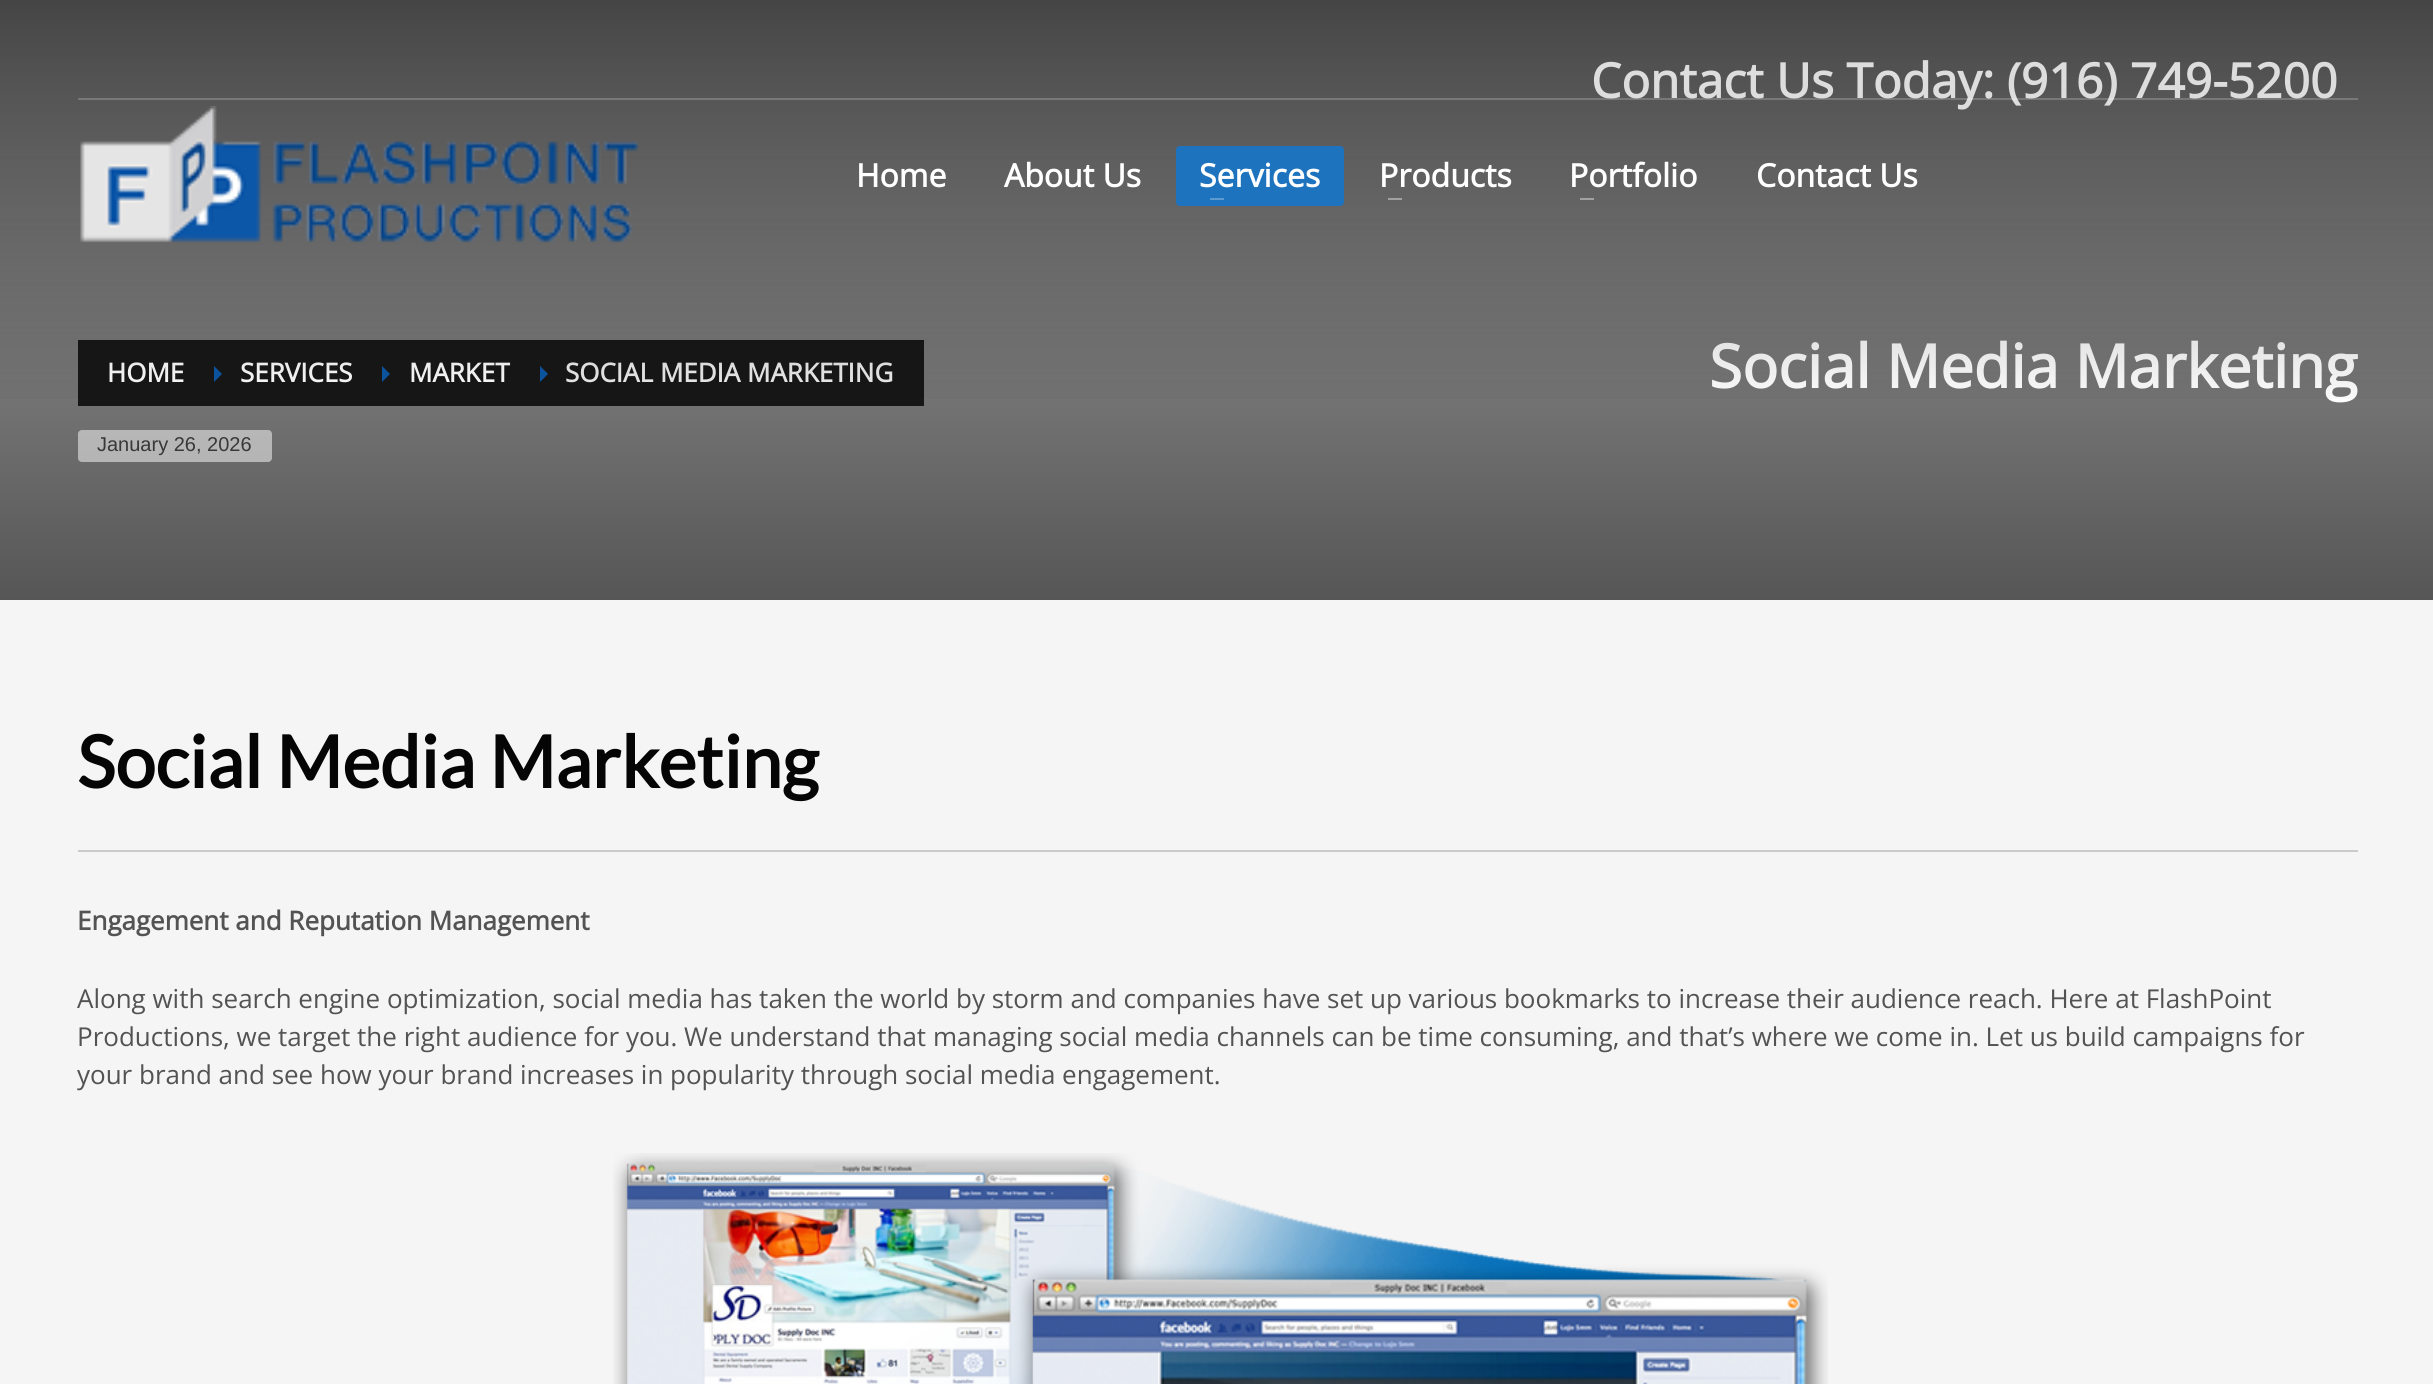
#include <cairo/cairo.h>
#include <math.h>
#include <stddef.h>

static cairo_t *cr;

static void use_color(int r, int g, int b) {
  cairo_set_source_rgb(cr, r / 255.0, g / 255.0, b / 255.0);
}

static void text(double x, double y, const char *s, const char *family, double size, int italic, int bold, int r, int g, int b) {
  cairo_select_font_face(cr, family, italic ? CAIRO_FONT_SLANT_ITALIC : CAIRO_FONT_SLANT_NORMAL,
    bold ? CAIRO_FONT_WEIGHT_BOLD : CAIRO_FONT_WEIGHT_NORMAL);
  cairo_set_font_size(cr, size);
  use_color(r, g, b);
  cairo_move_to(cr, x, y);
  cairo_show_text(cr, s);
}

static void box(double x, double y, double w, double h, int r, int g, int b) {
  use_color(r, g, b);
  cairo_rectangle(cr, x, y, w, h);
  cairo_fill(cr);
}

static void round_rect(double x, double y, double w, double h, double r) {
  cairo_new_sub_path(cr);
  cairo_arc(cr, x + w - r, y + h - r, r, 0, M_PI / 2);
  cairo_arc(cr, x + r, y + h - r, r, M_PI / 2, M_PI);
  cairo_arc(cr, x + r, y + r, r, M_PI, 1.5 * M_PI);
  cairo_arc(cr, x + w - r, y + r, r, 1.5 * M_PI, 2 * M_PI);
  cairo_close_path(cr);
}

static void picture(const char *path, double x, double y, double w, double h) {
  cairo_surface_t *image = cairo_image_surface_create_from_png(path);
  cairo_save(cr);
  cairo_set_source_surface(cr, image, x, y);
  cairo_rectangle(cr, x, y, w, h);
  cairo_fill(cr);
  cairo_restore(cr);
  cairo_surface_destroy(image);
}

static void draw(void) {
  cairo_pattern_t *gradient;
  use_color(245, 245, 245);
  cairo_paint(cr);
  gradient = cairo_pattern_create_linear(1217, 0, 1217, 600);
  cairo_pattern_add_color_stop_rgba(gradient, 0, 0.675, 0.675, 0.675, 1);
  cairo_pattern_add_color_stop_rgba(gradient, 1, 0.337, 0.337, 0.337, 1);
  cairo_set_source(cr, gradient);
  cairo_pattern_destroy(gradient);
  cairo_rectangle(cr, 0, 0, 2433, 600);
  cairo_fill(cr);
  gradient = cairo_pattern_create_linear(1217, 0, 1217, 600);
  cairo_pattern_add_color_stop_rgba(gradient, 0, 0.133, 0.133, 0.133, 1);
  cairo_pattern_add_color_stop_rgba(gradient, 1, 0.067, 0.067, 0.067, 1);
  cairo_set_source(cr, gradient);
  cairo_pattern_destroy(gradient);
  cairo_rectangle(cr, 520, 340, 404, 66);
  cairo_fill(cr);
  cairo_rectangle(cr, 362, 340, 158, 66);
  cairo_fill(cr);
  cairo_rectangle(cr, 194, 340, 168, 66);
  cairo_fill(cr);
  cairo_rectangle(cr, 78, 340, 116, 66);
  cairo_fill(cr);
  use_color(13, 88, 168);
  cairo_new_path(cr);
  cairo_move_to(cr, 214, 382);
  cairo_line_to(cr, 214, 366);
  cairo_line_to(cr, 222, 374);
  cairo_close_path(cr);
  cairo_fill(cr);
  cairo_new_path(cr);
  cairo_move_to(cr, 382, 382);
  cairo_line_to(cr, 382, 366);
  cairo_line_to(cr, 390, 374);
  cairo_close_path(cr);
  cairo_fill(cr);
  cairo_new_path(cr);
  cairo_move_to(cr, 540, 382);
  cairo_line_to(cr, 540, 366);
  cairo_line_to(cr, 548, 374);
  cairo_close_path(cr);
  cairo_fill(cr);
  cairo_set_source_rgba(cr, 1, 1, 1, 0.5);
  round_rect(78, 430, 194, 32, 4);
  cairo_fill(cr);
  box(78, 850, 2280, 2, 203, 203, 203);
  picture("img_02.png", 613, 1153, 1215, 231);
  text(107, 382, "HOME", "Open Sans", 26, 0, 1, 255, 255, 255);
  text(240, 382, "SERVICES", "Open Sans", 26, 0, 1, 255, 255, 255);
  text(409, 382, "MARKET", "Open Sans", 26, 0, 1, 255, 255, 255);
  text(565, 382, "SOCIAL MEDIA MARKETING", "Open Sans", 26, 0, 1, 238, 238, 238);
  text(97, 451, "January 26, 2026", "Liberation Sans", 20, 0, 0, 56, 56, 56);
  text(1709, 388, "Social Media Marketing", "Open Sans", 60, 0, 1, 255, 255, 255);
  gradient = cairo_pattern_create_linear(1217, 0, 1217, 414);
  cairo_pattern_add_color_stop_rgba(gradient, 0, 0, 0, 0, 0.6);
  cairo_pattern_add_color_stop_rgba(gradient, 1, 0, 0, 0, 0);
  cairo_set_source(cr, gradient);
  cairo_pattern_destroy(gradient);
  cairo_rectangle(cr, 0, 0, 2433, 399);
  cairo_fill(cr);
  text(1756, 187, "Contact Us", "Open Sans", 32, 0, 1, 255, 255, 255);
  box(1580, 198, 14, 2, 161, 161, 161);
  text(1569, 187, "Portfolio", "Open Sans", 32, 0, 1, 255, 255, 255);
  box(1388, 198, 14, 2, 161, 161, 161);
  text(1379, 187, "Products", "Open Sans", 32, 0, 1, 255, 255, 255);
  use_color(30, 115, 190);
  round_rect(1176, 146, 168, 60, 4);
  cairo_fill(cr);
  box(1210, 198, 14, 2, 93, 154, 208);
  text(1199, 187, "Services", "Open Sans", 32, 0, 1, 255, 255, 255);
  text(1004, 187, "About Us", "Open Sans", 32, 0, 1, 255, 255, 255);
  text(856, 187, "Home", "Open Sans", 32, 0, 1, 255, 255, 255);
  picture("img_01.png", 80, 106, 559, 137);
  text(1591, 98, "Contact Us Today: (916) 749-5200", "Open Sans", 48, 0, 1, 221, 221, 221);
  cairo_set_source_rgba(cr, 1, 1, 1, 0.2);
  cairo_rectangle(cr, 78, 98, 2280, 2);
  cairo_fill(cr);
  text(77, 788, "Social Media Marketing", "Lato", 72, 0, 1, 5, 5, 5);
  text(77, 930, "Engagement and Reputation Management", "Open Sans", 26, 0, 1, 83, 83, 83);
  text(77, 1008, "Along with search engine optimization, social media has taken the world by storm and companies have set up various bookmarks to increase their audience reach. Here at FlashPoint", "Open Sans", 26, 0, 0, 83, 83, 83);
  text(77, 1046, "Productions, we target the right audience for you. We understand that managing social media channels can be time consuming, and that’s where we come in. Let us build campaigns for", "Open Sans", 26, 0, 0, 83, 83, 83);
  text(77, 1084, "your brand and see how your brand increases in popularity through social media engagement.", "Open Sans", 26, 0, 0, 83, 83, 83);
}

int main(void) {
  cairo_surface_t *surface = cairo_image_surface_create(CAIRO_FORMAT_RGB24, 2433, 1384);
  cr = cairo_create(surface);
  cairo_font_options_t *options = cairo_font_options_create();
  cairo_font_options_set_hint_metrics(options, CAIRO_HINT_METRICS_OFF);
  cairo_font_options_set_hint_style(options, CAIRO_HINT_STYLE_NONE);
  cairo_set_font_options(cr, options);
  cairo_set_miter_limit(cr, 4);
  draw();
  cairo_surface_write_to_png(surface, "out.png");
  cairo_font_options_destroy(options);
  cairo_destroy(cr);
  cairo_surface_destroy(surface);
  return 0;
}
